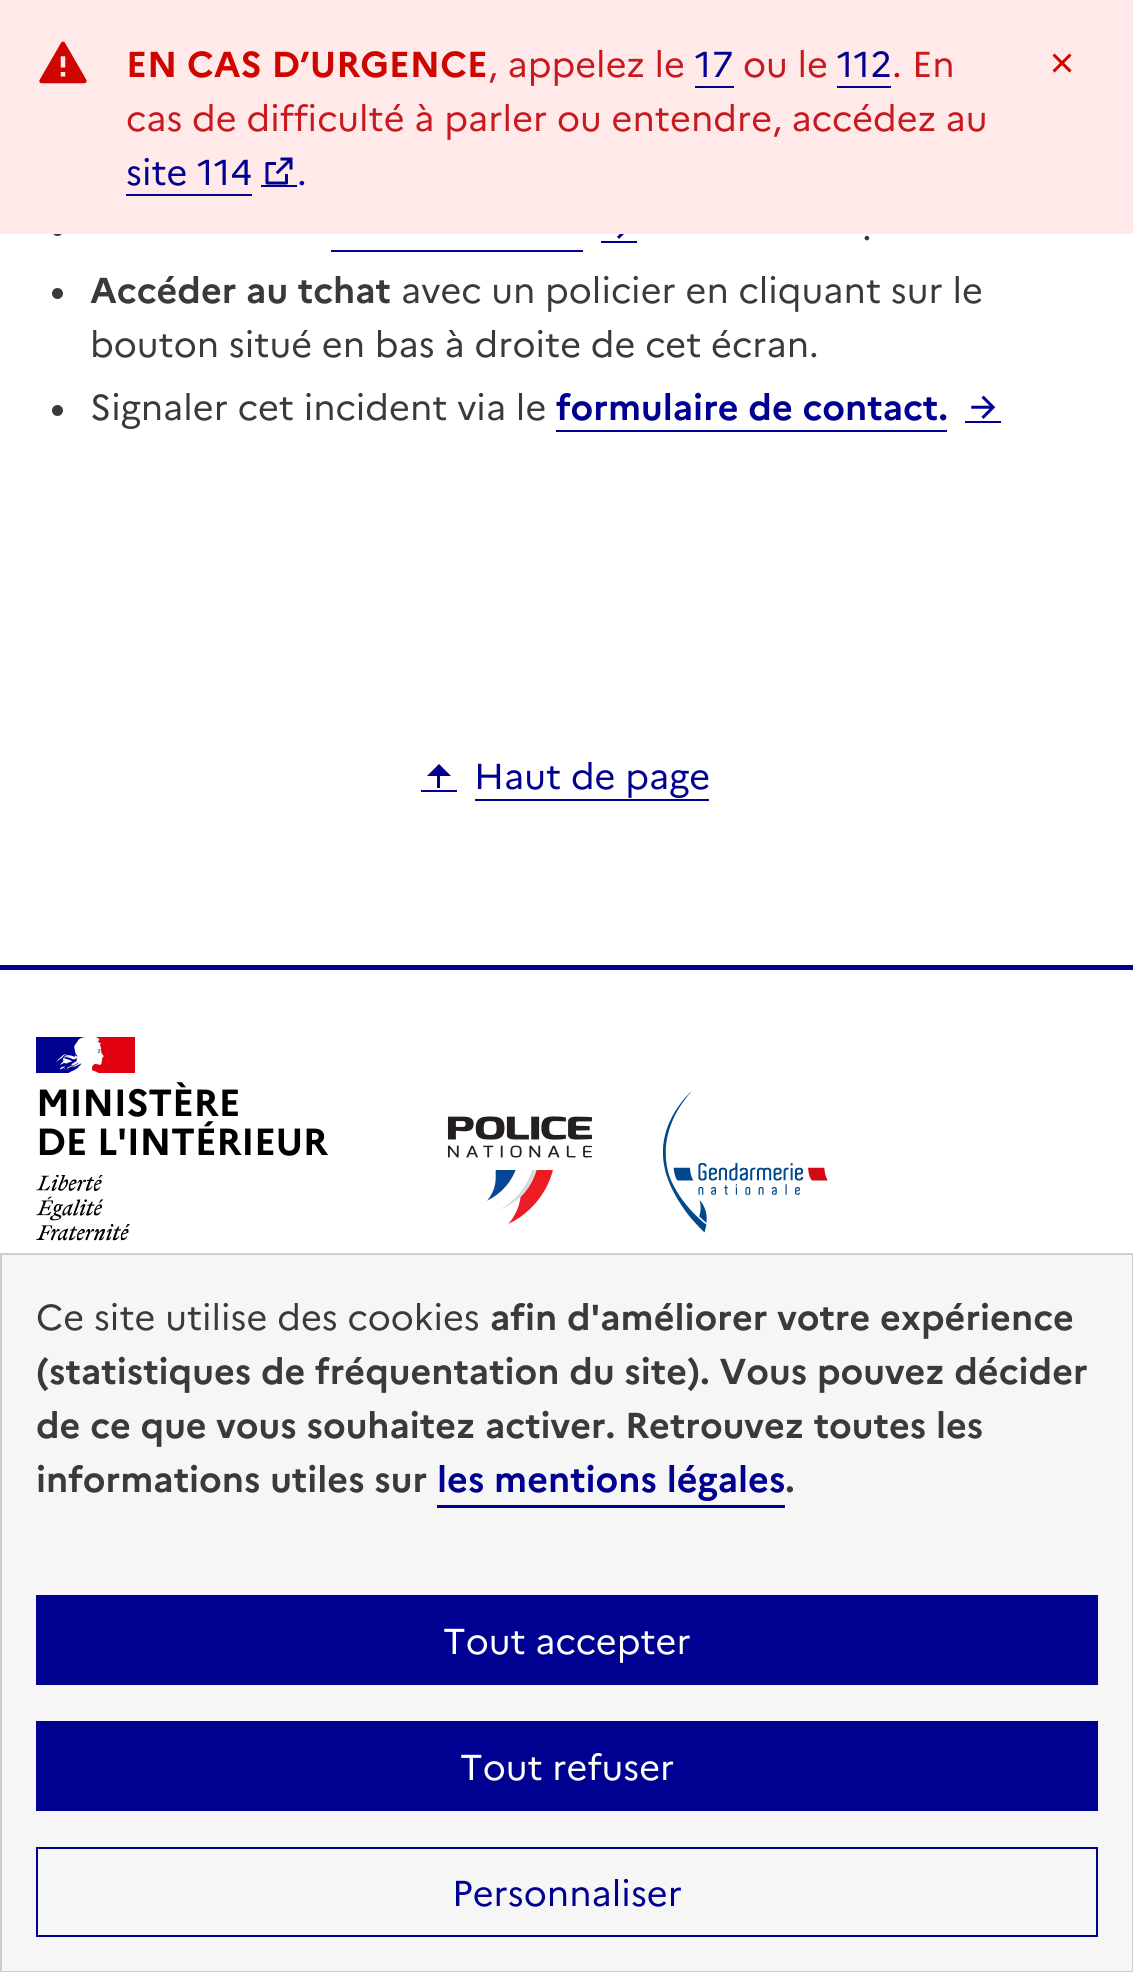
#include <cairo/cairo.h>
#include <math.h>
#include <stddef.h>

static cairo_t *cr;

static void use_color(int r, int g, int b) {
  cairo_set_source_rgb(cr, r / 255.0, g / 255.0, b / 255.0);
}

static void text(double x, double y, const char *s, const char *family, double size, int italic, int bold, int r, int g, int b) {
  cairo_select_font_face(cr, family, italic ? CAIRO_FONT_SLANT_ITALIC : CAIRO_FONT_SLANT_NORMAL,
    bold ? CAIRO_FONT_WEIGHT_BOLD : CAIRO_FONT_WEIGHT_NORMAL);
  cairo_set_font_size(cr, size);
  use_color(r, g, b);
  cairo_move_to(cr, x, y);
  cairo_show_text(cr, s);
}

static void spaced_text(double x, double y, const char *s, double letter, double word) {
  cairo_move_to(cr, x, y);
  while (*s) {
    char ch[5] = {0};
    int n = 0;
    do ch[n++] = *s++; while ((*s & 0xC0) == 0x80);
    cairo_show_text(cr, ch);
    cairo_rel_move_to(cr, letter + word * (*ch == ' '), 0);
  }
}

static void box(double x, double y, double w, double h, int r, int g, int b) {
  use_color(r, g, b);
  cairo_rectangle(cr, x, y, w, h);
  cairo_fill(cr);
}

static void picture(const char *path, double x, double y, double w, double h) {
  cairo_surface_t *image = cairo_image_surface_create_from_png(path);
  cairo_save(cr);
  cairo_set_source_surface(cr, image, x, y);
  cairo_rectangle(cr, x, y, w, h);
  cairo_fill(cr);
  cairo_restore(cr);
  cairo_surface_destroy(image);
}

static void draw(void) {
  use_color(255, 255, 255);
  cairo_paint(cr);
  use_color(58, 58, 58);
  cairo_arc(cr, 57.5, 230.5, 5.5, 0, 2 * M_PI);
  cairo_fill(cr);
  box(0, 0, 1133, 234, 255, 233, 233);
  picture("img_01.png", 39, 41, 48, 43);
  box(695, 86, 39, 2, 0, 0, 145);
  box(837, 86, 54, 2, 0, 0, 145);
  box(126, 194, 126, 2, 0, 0, 145);
  box(261, 185, 36, 2, 0, 0, 145);
  picture("img_02.png", 265, 157, 28, 28);
  picture("img_03.png", 1052, 53, 20, 20);
  box(331, 250, 252, 2, 0, 0, 145);
  box(601, 241, 36, 2, 0, 0, 145);
  picture("img_04.png", 617, 234, 7, 5);
  use_color(58, 58, 58);
  cairo_arc(cr, 57.5, 293.5, 5.5, 0, 2 * M_PI);
  cairo_fill(cr);
  cairo_arc(cr, 57.5, 410.5, 5.5, 0, 2 * M_PI);
  cairo_fill(cr);
  box(556, 430, 391, 2, 0, 0, 145);
  box(965, 421, 36, 2, 0, 0, 145);
  picture("img_05.png", 971, 395, 25, 24);
  box(421, 790, 36, 2, 0, 0, 145);
  box(475, 799, 234, 2, 0, 0, 145);
  cairo_new_path(cr);
  cairo_move_to(cr, 440, 776);
  cairo_line_to(cr, 440, 788);
  cairo_line_to(cr, 437, 788);
  cairo_line_to(cr, 437, 776);
  cairo_line_to(cr, 427, 776);
  cairo_line_to(cr, 439, 764);
  cairo_line_to(cr, 451, 776);
  cairo_close_path(cr);
  cairo_fill(cr);
  box(0, 965, 1133, 5, 0, 0, 145);
  box(36, 1037, 50, 36, 0, 0, 145);
  box(91, 1037, 44, 36, 225, 0, 15);
  picture("img_06.png", 56, 1037, 48, 36);
  picture("img_07.png", 36, 1175, 94, 66);
  picture("img_08.png", 447, 1116, 145, 108);
  picture("img_09.png", 662, 1091, 166, 142);
  use_color(246, 246, 246);
  cairo_rectangle(cr, 1, 1254, 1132, 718);
  cairo_fill_preserve(cr);
  use_color(206, 206, 206);
  cairo_stroke(cr);
  box(437, 1505, 348, 3, 0, 0, 145);
  box(36, 1595, 1062, 90, 0, 0, 145);
  box(36, 1721, 1062, 90, 0, 0, 145);
  cairo_rectangle(cr, 37, 1848, 1060, 88);
  cairo_stroke(cr);
  text(126, 77, "EN CAS D’URGENCE", "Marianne", 36, 0, 1, 206, 5, 0);
  text(488, 77, ", appelez le", "Marianne", 36, 0, 0, 201, 25, 30);
  text(695, 77, "17", "Marianne", 36, 0, 0, 0, 0, 145);
  text(743, 77, "ou le", "Marianne", 36, 0, 0, 201, 25, 30);
  text(837, 77, "112", "Marianne", 36, 0, 0, 0, 0, 145);
  text(892, 77, ".", "Marianne", 36, 0, 0, 206, 5, 0);
  text(912, 77, "En", "Marianne", 36, 0, 0, 201, 25, 30);
  text(126, 131, "cas de difficulté à parler ou entendre, accédez au", "Marianne", 36, 0, 0, 201, 25, 30);
  text(126, 185, "site 114", "Marianne", 36, 0, 0, 0, 0, 145);
  text(297, 185, ".", "Marianne", 36, 0, 0, 0, 0, 145);
  text(862, 240, ".", "Marianne", 36, 0, 0, 58, 58, 58);
  text(90, 303, "Accéder au tchat", "Marianne", 36, 0, 1, 58, 58, 58);
  text(401, 303, "avec un policier en cliquant sur le", "Marianne", 36, 0, 0, 58, 58, 58);
  text(90, 357, "bouton situé en bas à droite de cet écran.", "Marianne", 36, 0, 0, 58, 58, 58);
  text(90, 420, "Signaler cet incident via le", "Marianne", 36, 0, 0, 58, 58, 58);
  text(556, 420, "formulaire de contact.", "Marianne", 36, 0, 1, 0, 0, 145);
  text(474, 789, "Haut de page", "Marianne", 36, 0, 0, 0, 0, 145);
  cairo_select_font_face(cr, "Marianne", CAIRO_FONT_SLANT_NORMAL, CAIRO_FONT_WEIGHT_BOLD);
  cairo_set_font_size(cr, 37.75);
  use_color(0, 0, 0);
  spaced_text(36, 1116, "MINISTÈRE", -0.4, 0);
  spaced_text(36, 1155, "DE L'INTÉRIEUR", -0.4, 0);
  text(36, 1330, "Ce site utilise des cookies", "Marianne", 36, 0, 0, 58, 58, 58);
  text(490, 1330, "afin d'améliorer votre expérience", "Marianne", 36, 0, 1, 58, 58, 58);
  text(36, 1384, "(statistiques de fréquentation du site). Vous pouvez décider", "Marianne", 36, 0, 1, 58, 58, 58);
  text(36, 1438, "de ce que vous souhaitez activer. Retrouvez toutes les", "Marianne", 36, 0, 1, 58, 58, 58);
  text(36, 1492, "informations utiles sur", "Marianne", 36, 0, 1, 58, 58, 58);
  text(437, 1492, "les mentions légales", "Marianne", 36, 0, 1, 0, 0, 145);
  text(785, 1492, ".", "Marianne", 36, 0, 1, 58, 58, 58);
  text(443, 1654, "Tout accepter", "Marianne", 36, 0, 0, 255, 255, 255);
  text(460, 1780, "Tout refuser", "Marianne", 36, 0, 0, 255, 255, 255);
  text(452, 1906, "Personnaliser", "Marianne", 36, 0, 0, 0, 0, 145);
}

int main(void) {
  cairo_surface_t *surface = cairo_image_surface_create(CAIRO_FORMAT_RGB24, 1133, 1972);
  cr = cairo_create(surface);
  cairo_font_options_t *options = cairo_font_options_create();
  cairo_font_options_set_hint_metrics(options, CAIRO_HINT_METRICS_OFF);
  cairo_font_options_set_hint_style(options, CAIRO_HINT_STYLE_NONE);
  cairo_set_font_options(cr, options);
  cairo_set_miter_limit(cr, 4);
  draw();
  cairo_surface_write_to_png(surface, "out.png");
  cairo_font_options_destroy(options);
  cairo_destroy(cr);
  cairo_surface_destroy(surface);
  return 0;
}
